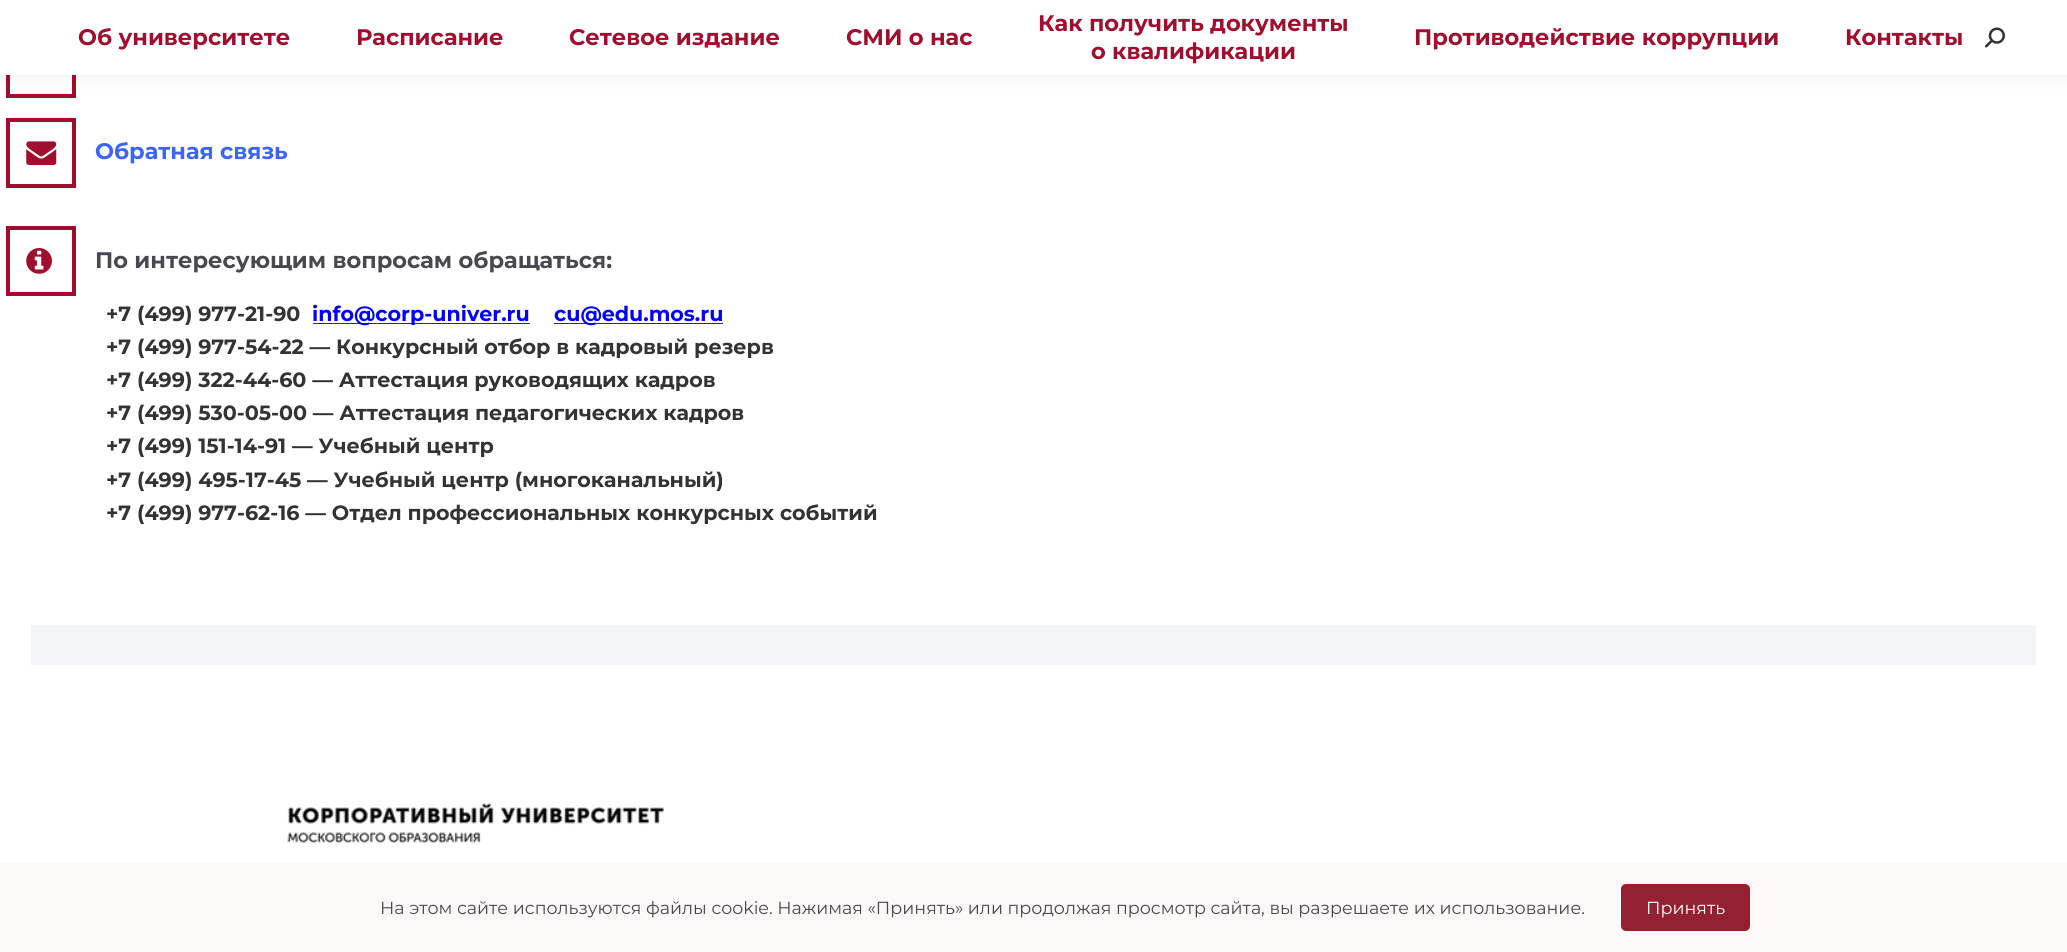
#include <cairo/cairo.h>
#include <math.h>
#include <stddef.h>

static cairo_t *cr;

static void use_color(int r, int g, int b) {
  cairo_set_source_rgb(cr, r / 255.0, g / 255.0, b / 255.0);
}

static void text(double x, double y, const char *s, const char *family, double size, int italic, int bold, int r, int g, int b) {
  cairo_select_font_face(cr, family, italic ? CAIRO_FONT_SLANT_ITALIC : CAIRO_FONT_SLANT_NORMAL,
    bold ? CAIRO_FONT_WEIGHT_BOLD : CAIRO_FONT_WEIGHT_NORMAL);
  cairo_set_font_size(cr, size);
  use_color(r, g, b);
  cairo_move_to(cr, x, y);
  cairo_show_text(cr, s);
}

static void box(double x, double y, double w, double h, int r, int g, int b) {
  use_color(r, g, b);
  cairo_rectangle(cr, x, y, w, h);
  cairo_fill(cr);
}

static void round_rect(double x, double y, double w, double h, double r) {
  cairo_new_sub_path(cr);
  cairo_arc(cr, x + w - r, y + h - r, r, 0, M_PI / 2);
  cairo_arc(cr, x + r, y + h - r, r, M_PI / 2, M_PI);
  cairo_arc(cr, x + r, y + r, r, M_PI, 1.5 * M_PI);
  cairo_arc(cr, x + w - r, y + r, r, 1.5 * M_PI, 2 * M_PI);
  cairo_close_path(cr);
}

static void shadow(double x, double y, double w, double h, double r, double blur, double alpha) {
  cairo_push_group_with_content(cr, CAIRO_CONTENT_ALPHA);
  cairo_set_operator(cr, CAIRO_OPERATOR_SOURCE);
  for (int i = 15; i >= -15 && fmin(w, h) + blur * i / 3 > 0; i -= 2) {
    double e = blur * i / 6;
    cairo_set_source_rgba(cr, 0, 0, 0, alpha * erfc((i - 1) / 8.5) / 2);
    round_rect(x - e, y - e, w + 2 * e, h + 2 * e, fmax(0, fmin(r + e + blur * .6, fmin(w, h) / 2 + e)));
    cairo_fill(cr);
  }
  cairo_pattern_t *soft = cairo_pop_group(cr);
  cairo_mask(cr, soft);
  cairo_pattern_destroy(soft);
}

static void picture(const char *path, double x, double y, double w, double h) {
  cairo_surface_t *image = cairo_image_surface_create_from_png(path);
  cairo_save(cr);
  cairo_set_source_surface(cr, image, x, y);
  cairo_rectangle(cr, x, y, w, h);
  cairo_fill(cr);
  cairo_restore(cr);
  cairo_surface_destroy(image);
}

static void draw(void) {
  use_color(255, 255, 255);
  cairo_paint(cr);
  cairo_rectangle(cr, 8, 30, 66, 66);
  use_color(159, 14, 46);
  cairo_set_line_width(cr, 4);
  cairo_stroke(cr);
  use_color(0, 0, 0);
  shadow(-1, -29, 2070, 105, 0, 9.5, 0.07);
  box(0, 0, 2067, 75, 255, 255, 255);
  picture("img_01.png", 1985, 27, 20, 21);
  cairo_rectangle(cr, 8, 120, 66, 66);
  use_color(159, 14, 46);
  cairo_stroke(cr);
  picture("img_02.png", 26, 141, 31, 24);
  cairo_rectangle(cr, 8, 228, 66, 66);
  cairo_stroke(cr);
  picture("img_03.png", 26, 248, 26, 26);
  box(313, 323, 217, 1, 51, 51, 51);
  box(554, 323, 169, 1, 51, 51, 51);
  box(31, 625, 2005, 40, 243, 245, 247);
  picture("img_04.png", 287, 803, 377, 41);
  box(0, 863, 2067, 89, 254, 249, 249);
  use_color(146, 34, 50);
  round_rect(1621, 884, 129, 47, 5);
  cairo_fill(cr);
  text(78, 45, "Об университете", "Montserrat", 22.5, 0, 1, 159, 14, 46);
  text(356, 45, "Расписание", "Montserrat", 22.5, 0, 1, 159, 14, 46);
  text(569, 45, "Сетевое издание", "Montserrat", 22.5, 0, 1, 159, 14, 46);
  text(846, 45, "СМИ о нас", "Montserrat", 22.5, 0, 1, 159, 14, 46);
  text(1038, 31, "Как получить документы", "Montserrat", 22.5, 0, 1, 159, 14, 46);
  text(1091, 59, "о квалификации", "Montserrat", 22.5, 0, 1, 159, 14, 46);
  text(1414, 45, "Противодействие коррупции", "Montserrat", 22.5, 0, 1, 159, 14, 46);
  text(1845, 45, "Контакты", "Montserrat", 22.5, 0, 1, 159, 14, 46);
  text(95, 159, "Обратная связь", "Montserrat", 22.5, 0, 1, 62, 100, 255);
  text(95, 268, "По интересующим вопросам обращаться:", "Montserrat", 22.5, 0, 1, 71, 73, 79);
  text(106, 321, "+7 (499) 977-21-90", "Montserrat", 20.65, 0, 1, 51, 51, 51);
  text(312, 321, "info@corp-univer.ru", "Montserrat", 20.65, 0, 1, 0, 0, 255);
  text(554, 321, "cu@edu.mos.ru", "Montserrat", 20.65, 0, 1, 0, 0, 255);
  text(106, 354, "+7 (499) 977-54-22 — Конкурсный отбор в кадровый резерв", "Montserrat", 20.65, 0, 1, 51, 51, 51);
  text(106, 387, "+7 (499) 322-44-60 — Аттестация руководящих кадров", "Montserrat", 20.65, 0, 1, 51, 51, 51);
  text(106, 420, "+7 (499) 530-05-00 — Аттестация педагогических кадров", "Montserrat", 20.65, 0, 1, 51, 51, 51);
  text(106, 453, "+7 (499) 151-14-91 — Учебный центр", "Montserrat", 20.65, 0, 1, 51, 51, 51);
  text(106, 487, "+7 (499) 495-17-45 — Учебный центр (многоканальный)", "Montserrat", 20.65, 0, 1, 51, 51, 51);
  text(106, 520, "+7 (499) 977-62-16 — Отдел профессиональных конкурсных событий", "Montserrat", 20.65, 0, 1, 51, 51, 51);
  text(380, 914, "На этом сайте используются файлы cookie. Нажимая «Принять» или продолжая просмотр сайта, вы разрешаете их использование.", "Montserrat", 17.5, 0, 0, 71, 73, 79);
  text(1646, 914, "Принять", "Montserrat", 17.5, 0, 0, 255, 255, 255);
}

int main(void) {
  cairo_surface_t *surface = cairo_image_surface_create(CAIRO_FORMAT_RGB24, 2067, 952);
  cr = cairo_create(surface);
  cairo_font_options_t *options = cairo_font_options_create();
  cairo_font_options_set_hint_metrics(options, CAIRO_HINT_METRICS_OFF);
  cairo_font_options_set_hint_style(options, CAIRO_HINT_STYLE_NONE);
  cairo_set_font_options(cr, options);
  cairo_set_miter_limit(cr, 4);
  draw();
  cairo_surface_write_to_png(surface, "out.png");
  cairo_font_options_destroy(options);
  cairo_destroy(cr);
  cairo_surface_destroy(surface);
  return 0;
}
